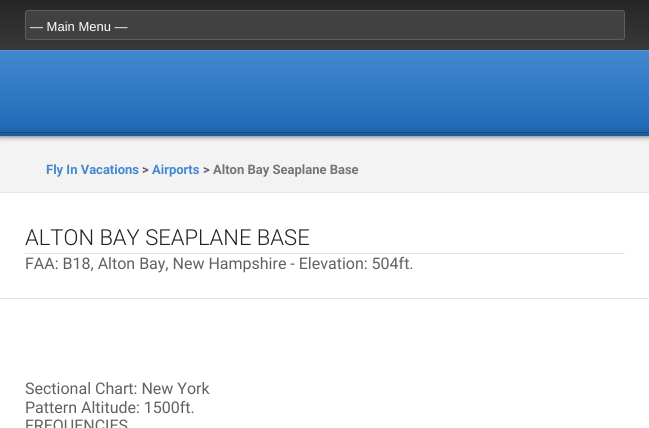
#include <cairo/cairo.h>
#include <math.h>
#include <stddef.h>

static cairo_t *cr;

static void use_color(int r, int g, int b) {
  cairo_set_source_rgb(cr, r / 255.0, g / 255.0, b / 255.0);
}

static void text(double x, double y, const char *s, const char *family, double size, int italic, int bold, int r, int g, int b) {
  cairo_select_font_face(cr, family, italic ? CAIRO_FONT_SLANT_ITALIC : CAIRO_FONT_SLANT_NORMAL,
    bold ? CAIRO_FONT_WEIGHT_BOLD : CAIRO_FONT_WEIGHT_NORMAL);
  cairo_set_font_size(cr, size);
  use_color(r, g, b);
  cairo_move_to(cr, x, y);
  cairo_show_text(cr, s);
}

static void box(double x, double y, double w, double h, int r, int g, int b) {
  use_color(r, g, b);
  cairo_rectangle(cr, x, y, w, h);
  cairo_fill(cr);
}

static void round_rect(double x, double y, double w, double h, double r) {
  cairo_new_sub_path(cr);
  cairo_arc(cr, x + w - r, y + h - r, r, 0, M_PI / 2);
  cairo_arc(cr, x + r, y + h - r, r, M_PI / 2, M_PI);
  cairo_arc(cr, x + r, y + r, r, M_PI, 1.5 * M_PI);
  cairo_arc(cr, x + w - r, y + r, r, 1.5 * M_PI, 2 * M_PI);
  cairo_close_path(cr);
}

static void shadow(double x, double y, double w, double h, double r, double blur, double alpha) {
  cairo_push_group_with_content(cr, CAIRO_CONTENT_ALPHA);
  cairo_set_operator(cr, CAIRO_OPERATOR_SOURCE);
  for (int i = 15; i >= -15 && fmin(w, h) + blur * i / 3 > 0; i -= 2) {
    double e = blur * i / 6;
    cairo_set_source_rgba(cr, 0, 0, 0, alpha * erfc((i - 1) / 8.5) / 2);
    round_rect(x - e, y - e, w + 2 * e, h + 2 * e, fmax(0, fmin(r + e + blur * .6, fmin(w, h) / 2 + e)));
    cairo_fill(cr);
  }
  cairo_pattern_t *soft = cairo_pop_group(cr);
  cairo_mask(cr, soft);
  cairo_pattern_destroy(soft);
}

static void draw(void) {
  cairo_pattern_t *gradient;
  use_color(255, 255, 255);
  cairo_paint(cr);
  gradient = cairo_pattern_create_linear(325, 0, 325, 50);
  cairo_pattern_add_color_stop_rgba(gradient, 0, 0.145, 0.145, 0.145, 1);
  cairo_pattern_add_color_stop_rgba(gradient, 1, 0.224, 0.224, 0.224, 1);
  cairo_set_source(cr, gradient);
  cairo_pattern_destroy(gradient);
  cairo_rectangle(cr, 0, 0, 649, 50);
  cairo_fill(cr);
  use_color(65, 65, 65);
  round_rect(25.5, 10.5, 599, 29, 2.5);
  cairo_fill_preserve(cr);
  use_color(94, 94, 94);
  cairo_set_line_width(cr, 1);
  cairo_stroke(cr);
  gradient = cairo_pattern_create_linear(325, 51, 325, 131);
  cairo_pattern_add_color_stop_rgba(gradient, 0, 0.255, 0.533, 0.816, 1);
  cairo_pattern_add_color_stop_rgba(gradient, 1, 0.125, 0.42, 0.714, 1);
  cairo_set_source(cr, gradient);
  cairo_pattern_destroy(gradient);
  cairo_rectangle(cr, 0, 51, 649, 80);
  cairo_fill(cr);
  box(0, 50, 649, 1, 85, 149, 214);
  box(0, 131, 649, 1, 44, 115, 185);
  box(0, 136, 649, 56, 243, 243, 243);
  use_color(0, 0, 0);
  shadow(0, 133, 649, 4, 0, 2.5, 0.5);
  gradient = cairo_pattern_create_linear(325, 133, 325, 136);
  cairo_pattern_add_color_stop_rgba(gradient, 0, 0.11, 0.369, 0.639, 1);
  cairo_pattern_add_color_stop_rgba(gradient, 1, 0.102, 0.365, 0.635, 1);
  cairo_set_source(cr, gradient);
  cairo_pattern_destroy(gradient);
  cairo_rectangle(cr, 0, 133, 649, 3);
  cairo_fill(cr);
  box(0, 132, 649, 1, 20, 75, 129);
  box(0, 192, 649, 1, 230, 230, 230);
  box(0, 298, 649, 1, 228, 228, 228);
  box(25, 253, 600, 1, 228, 228, 228);
  text(30, 31, "— Main Menu —", "Liberation Sans", 13, 0, 0, 255, 255, 255);
  text(46, 174, "Fly In Vacations", "Roboto", 13, 0, 1, 65, 136, 208);
  text(142, 174, ">", "Roboto", 13, 0, 1, 97, 97, 97);
  text(152, 174, "Airports", "Roboto", 13, 0, 1, 65, 136, 208);
  text(203, 174, ">", "Roboto", 13, 0, 1, 97, 97, 97);
  text(213, 174, "Alton Bay Seaplane Base", "Roboto", 13, 0, 1, 117, 117, 117);
  text(25, 245, "ALTON BAY SEAPLANE BASE", "Roboto Light", 22, 0, 0, 33, 33, 33);
  text(25, 269, "FAA: B18, Alton Bay, New Hampshire - Elevation: 504ft.", "Roboto", 16, 0, 0, 97, 97, 97);
  text(25, 394, "Sectional Chart: New York", "Roboto", 16, 0, 0, 97, 97, 97);
  text(25, 413, "Pattern Altitude: 1500ft.", "Roboto", 16, 0, 0, 97, 97, 97);
  text(25, 431, "FREQUENCIES", "Roboto", 16, 0, 0, 97, 97, 97);
}

int main(void) {
  cairo_surface_t *surface = cairo_image_surface_create(CAIRO_FORMAT_RGB24, 649, 428);
  cr = cairo_create(surface);
  cairo_font_options_t *options = cairo_font_options_create();
  cairo_font_options_set_hint_metrics(options, CAIRO_HINT_METRICS_OFF);
  cairo_font_options_set_hint_style(options, CAIRO_HINT_STYLE_NONE);
  cairo_set_font_options(cr, options);
  cairo_set_miter_limit(cr, 4);
  draw();
  cairo_surface_write_to_png(surface, "out.png");
  cairo_font_options_destroy(options);
  cairo_destroy(cr);
  cairo_surface_destroy(surface);
  return 0;
}
